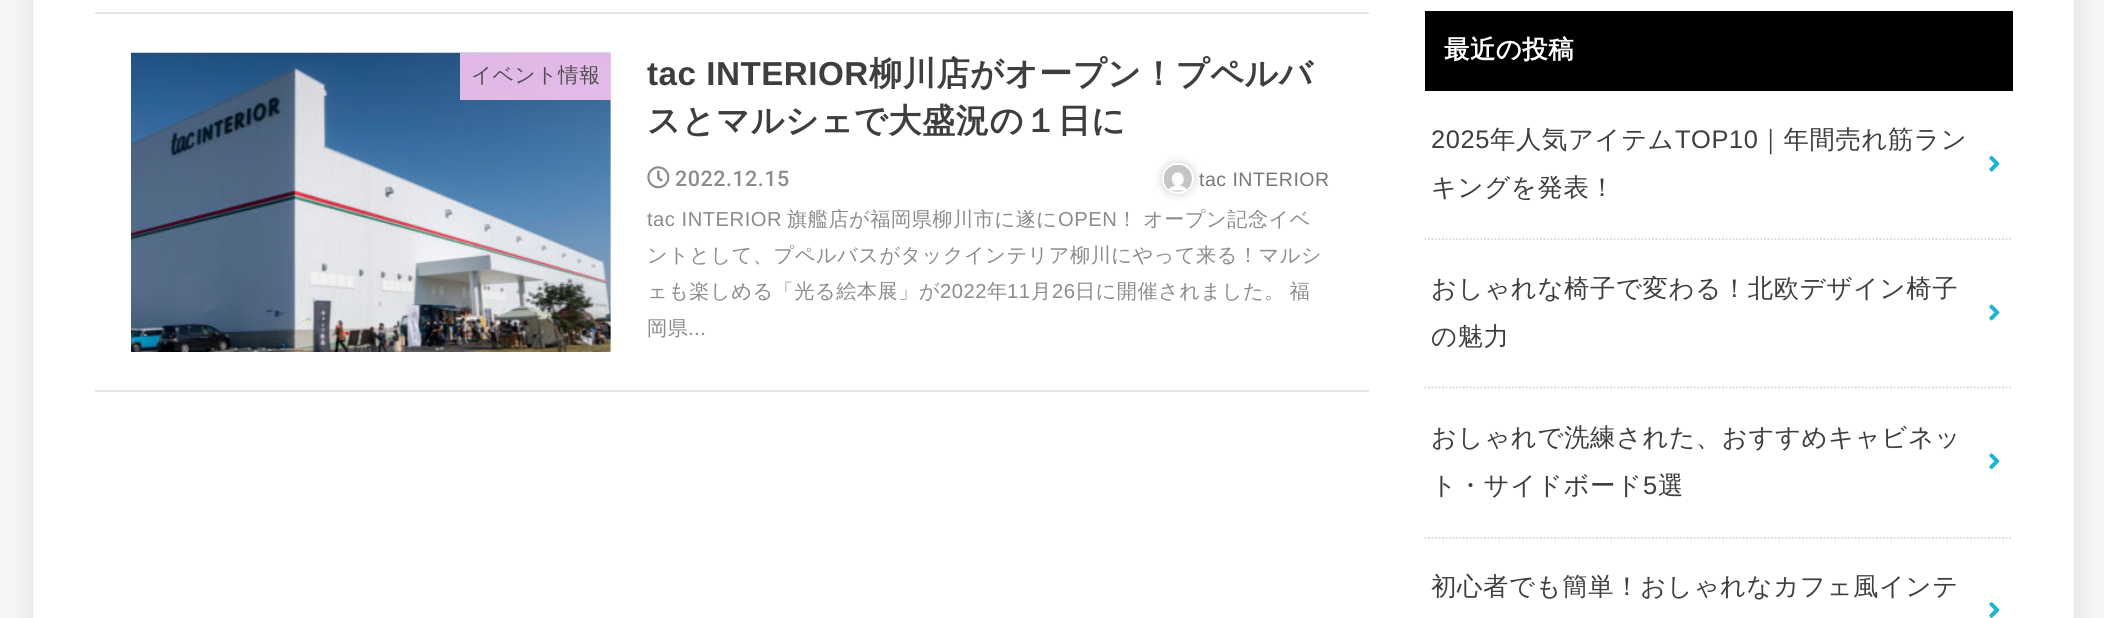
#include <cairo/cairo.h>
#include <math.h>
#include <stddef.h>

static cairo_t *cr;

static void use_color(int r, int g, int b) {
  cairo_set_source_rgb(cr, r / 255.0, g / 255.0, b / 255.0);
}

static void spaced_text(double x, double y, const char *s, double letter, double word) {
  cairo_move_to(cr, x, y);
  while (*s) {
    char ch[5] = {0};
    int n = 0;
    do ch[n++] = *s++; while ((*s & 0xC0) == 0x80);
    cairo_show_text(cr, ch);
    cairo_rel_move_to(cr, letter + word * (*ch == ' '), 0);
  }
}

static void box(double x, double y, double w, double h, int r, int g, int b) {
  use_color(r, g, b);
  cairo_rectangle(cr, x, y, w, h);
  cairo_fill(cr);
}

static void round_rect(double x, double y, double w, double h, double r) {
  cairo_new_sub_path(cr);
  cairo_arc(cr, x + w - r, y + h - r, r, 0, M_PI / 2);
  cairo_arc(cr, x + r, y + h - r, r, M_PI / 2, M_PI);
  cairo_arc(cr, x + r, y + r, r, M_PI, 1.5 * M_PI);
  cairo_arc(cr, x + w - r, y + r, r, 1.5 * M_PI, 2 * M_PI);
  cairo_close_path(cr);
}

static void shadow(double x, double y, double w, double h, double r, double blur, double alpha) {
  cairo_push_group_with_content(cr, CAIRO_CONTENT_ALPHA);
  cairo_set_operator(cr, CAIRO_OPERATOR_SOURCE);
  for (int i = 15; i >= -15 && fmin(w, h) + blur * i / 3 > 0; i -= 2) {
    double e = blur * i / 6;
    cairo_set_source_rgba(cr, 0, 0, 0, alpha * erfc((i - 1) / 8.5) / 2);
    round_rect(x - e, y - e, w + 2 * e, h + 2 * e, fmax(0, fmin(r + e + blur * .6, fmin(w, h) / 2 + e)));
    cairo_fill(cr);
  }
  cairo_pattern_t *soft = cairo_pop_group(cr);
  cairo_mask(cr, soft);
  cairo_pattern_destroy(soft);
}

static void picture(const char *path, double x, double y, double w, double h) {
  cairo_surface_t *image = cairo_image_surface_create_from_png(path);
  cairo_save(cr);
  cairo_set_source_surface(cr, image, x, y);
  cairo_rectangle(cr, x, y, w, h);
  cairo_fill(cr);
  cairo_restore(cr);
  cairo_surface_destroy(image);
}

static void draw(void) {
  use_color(247, 247, 247);
  cairo_paint(cr);
  use_color(102, 102, 102);
  shadow(33, -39, 2041, 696, 0, 13, 0.2);
  box(33, 0, 2041, 618, 255, 255, 255);
  box(95, 12, 1274, 2, 230, 230, 230);
  box(95, 390, 1274, 2, 230, 230, 230);
  picture("img_01.png", 131, 52, 480, 300);
  cairo_set_source_rgba(cr, 0.976, 0.773, 0.949, 0.88);
  cairo_rectangle(cr, 460, 53, 151, 47);
  cairo_fill(cr);
  picture("img_02.png", 647, 166, 23, 23);
  use_color(102, 102, 102);
  shadow(1162, 163, 32, 31, 15.5, 4.5, 0.3);
  round_rect(1163, 164, 30, 29, 14.5);
  use_color(255, 255, 255);
  cairo_stroke(cr);
  picture("img_03.png", 1164, 165, 28, 25);
  box(1425, 11, 588, 80, 0, 0, 0);
  cairo_new_path(cr);
  cairo_move_to(cr, 1424.5, 239);
  cairo_line_to(cr, 2012.5, 239);
  use_color(216, 216, 216);
  cairo_set_line_width(cr, 1.8);
  cairo_set_dash(cr, (double[]){1.75, 1.75}, 2, 0);
  cairo_stroke(cr);
  picture("img_04.png", 1989, 155, 11, 17);
  cairo_new_path(cr);
  cairo_move_to(cr, 1424.5, 387.5);
  cairo_line_to(cr, 2012.5, 387.5);
  cairo_stroke(cr);
  picture("img_05.png", 1989, 304, 11, 17);
  cairo_new_path(cr);
  cairo_move_to(cr, 1424.5, 538);
  cairo_line_to(cr, 2012.5, 538);
  cairo_stroke(cr);
  picture("img_06.png", 1989, 453, 11, 17);
  picture("img_07.png", 1989, 602, 11, 16);
  cairo_select_font_face(cr, "WenQuanYi Zen Hei Medium", CAIRO_FONT_SLANT_NORMAL, CAIRO_FONT_WEIGHT_NORMAL);
  cairo_set_font_size(cr, 20.75);
  use_color(82, 77, 82);
  spaced_text(471, 82, "イベント情報", 0.5, 0);
  cairo_select_font_face(cr, "Liberation Sans", CAIRO_FONT_SLANT_NORMAL, CAIRO_FONT_WEIGHT_BOLD);
  cairo_set_font_size(cr, 33.2);
  use_color(62, 62, 62);
  spaced_text(647, 85, "tac INTERIOR", 0.5, 0);
  cairo_select_font_face(cr, "WenQuanYi Zen Hei", CAIRO_FONT_SLANT_NORMAL, CAIRO_FONT_WEIGHT_BOLD);
  spaced_text(869, 85, "柳川店がオープン！プペルバ", 0.5, 0);
  spaced_text(647, 132, "スとマルシェで大盛況の１日に", 0.5, 0);
  cairo_select_font_face(cr, "Roboto Medium", CAIRO_FONT_SLANT_NORMAL, CAIRO_FONT_WEIGHT_NORMAL);
  cairo_set_font_size(cr, 21.5);
  use_color(139, 139, 139);
  spaced_text(675, 186, "2022.12.15", 0.5, 0);
  cairo_select_font_face(cr, "Liberation Sans", CAIRO_FONT_SLANT_NORMAL, CAIRO_FONT_WEIGHT_NORMAL);
  cairo_set_font_size(cr, 19.5);
  use_color(120, 120, 120);
  spaced_text(1199, 186, "tac INTERIOR", 0.5, 0);
  cairo_set_font_size(cr, 20.2);
  use_color(139, 139, 139);
  spaced_text(647, 226, "tac INTERIOR", 0.5, 0);
  cairo_select_font_face(cr, "WenQuanYi Zen Hei Medium", CAIRO_FONT_SLANT_NORMAL, CAIRO_FONT_WEIGHT_NORMAL);
  spaced_text(787, 226, "旗艦店が福岡県柳川市に遂に", 0.5, 0);
  cairo_select_font_face(cr, "Liberation Sans", CAIRO_FONT_SLANT_NORMAL, CAIRO_FONT_WEIGHT_NORMAL);
  spaced_text(1058, 226, "OPEN", 0.5, 0);
  cairo_select_font_face(cr, "WenQuanYi Zen Hei Medium", CAIRO_FONT_SLANT_NORMAL, CAIRO_FONT_WEIGHT_NORMAL);
  spaced_text(1117, 226, "！", 0.5, 0);
  spaced_text(1143, 226, "オープン記念イベ", 0.5, 0);
  spaced_text(647, 262, "ントとして、プペルバスがタックインテリア柳川にやって来る！マルシ", 0.5, 0);
  spaced_text(647, 298, "ェも楽しめる「光る絵本展」が", 0.5, 0);
  cairo_select_font_face(cr, "Liberation Sans", CAIRO_FONT_SLANT_NORMAL, CAIRO_FONT_WEIGHT_NORMAL);
  spaced_text(940, 298, "2022", 0.5, 0);
  cairo_select_font_face(cr, "WenQuanYi Zen Hei Medium", CAIRO_FONT_SLANT_NORMAL, CAIRO_FONT_WEIGHT_NORMAL);
  spaced_text(987, 298, "年", 0.5, 0);
  cairo_select_font_face(cr, "Liberation Sans", CAIRO_FONT_SLANT_NORMAL, CAIRO_FONT_WEIGHT_NORMAL);
  spaced_text(1007, 298, "11", 0.5, 0);
  cairo_select_font_face(cr, "WenQuanYi Zen Hei Medium", CAIRO_FONT_SLANT_NORMAL, CAIRO_FONT_WEIGHT_NORMAL);
  spaced_text(1031, 298, "月", 0.5, 0);
  cairo_select_font_face(cr, "Liberation Sans", CAIRO_FONT_SLANT_NORMAL, CAIRO_FONT_WEIGHT_NORMAL);
  spaced_text(1052, 298, "26", 0.5, 0);
  cairo_select_font_face(cr, "WenQuanYi Zen Hei Medium", CAIRO_FONT_SLANT_NORMAL, CAIRO_FONT_WEIGHT_NORMAL);
  spaced_text(1075, 298, "日に開催されました。 福", 0.5, -2);
  spaced_text(647, 335, "岡県", 0.5, 0);
  cairo_select_font_face(cr, "Liberation Sans", CAIRO_FONT_SLANT_NORMAL, CAIRO_FONT_WEIGHT_NORMAL);
  spaced_text(688, 335, "...", 0.5, 0);
  cairo_select_font_face(cr, "WenQuanYi Zen Hei", CAIRO_FONT_SLANT_NORMAL, CAIRO_FONT_WEIGHT_BOLD);
  cairo_set_font_size(cr, 25.4);
  use_color(255, 255, 255);
  spaced_text(1444, 58, "最近の投稿", 0.5, 0);
  cairo_select_font_face(cr, "Liberation Sans", CAIRO_FONT_SLANT_NORMAL, CAIRO_FONT_WEIGHT_NORMAL);
  use_color(62, 62, 62);
  spaced_text(1431, 148, "2025", 0.6, 0);
  cairo_select_font_face(cr, "WenQuanYi Zen Hei Medium", CAIRO_FONT_SLANT_NORMAL, CAIRO_FONT_WEIGHT_NORMAL);
  spaced_text(1490, 148, "年人気アイテム", 0.6, 0);
  cairo_select_font_face(cr, "Liberation Sans", CAIRO_FONT_SLANT_NORMAL, CAIRO_FONT_WEIGHT_NORMAL);
  spaced_text(1675, 148, "TOP10", 0.6, 0);
  cairo_select_font_face(cr, "WenQuanYi Zen Hei Medium", CAIRO_FONT_SLANT_NORMAL, CAIRO_FONT_WEIGHT_NORMAL);
  spaced_text(1758, 148, "｜年間売れ筋ラン", 0.6, 0);
  spaced_text(1431, 196, "キングを発表！", 0.6, 0);
  spaced_text(1431, 297, "おしゃれな椅子で変わる！北欧デザイン椅子", 0.6, 0);
  spaced_text(1431, 345, "の魅力", 0.6, 0);
  spaced_text(1431, 446, "おしゃれで洗練された、おすすめキャビネッ", 0.6, 0);
  spaced_text(1431, 494, "ト・サイドボード", 0.6, 0);
  cairo_select_font_face(cr, "Liberation Sans", CAIRO_FONT_SLANT_NORMAL, CAIRO_FONT_WEIGHT_NORMAL);
  spaced_text(1643, 494, "5", 0.6, 0);
  cairo_select_font_face(cr, "WenQuanYi Zen Hei Medium", CAIRO_FONT_SLANT_NORMAL, CAIRO_FONT_WEIGHT_NORMAL);
  spaced_text(1658, 494, "選", 0.6, 0);
  spaced_text(1431, 595, "初心者でも簡単！おしゃれなカフェ風インテ", 0.6, 0);
}

int main(void) {
  cairo_surface_t *surface = cairo_image_surface_create(CAIRO_FORMAT_RGB24, 2104, 618);
  cr = cairo_create(surface);
  cairo_font_options_t *options = cairo_font_options_create();
  cairo_font_options_set_hint_metrics(options, CAIRO_HINT_METRICS_OFF);
  cairo_font_options_set_hint_style(options, CAIRO_HINT_STYLE_NONE);
  cairo_set_font_options(cr, options);
  cairo_set_miter_limit(cr, 4);
  draw();
  cairo_surface_write_to_png(surface, "out.png");
  cairo_font_options_destroy(options);
  cairo_destroy(cr);
  cairo_surface_destroy(surface);
  return 0;
}
